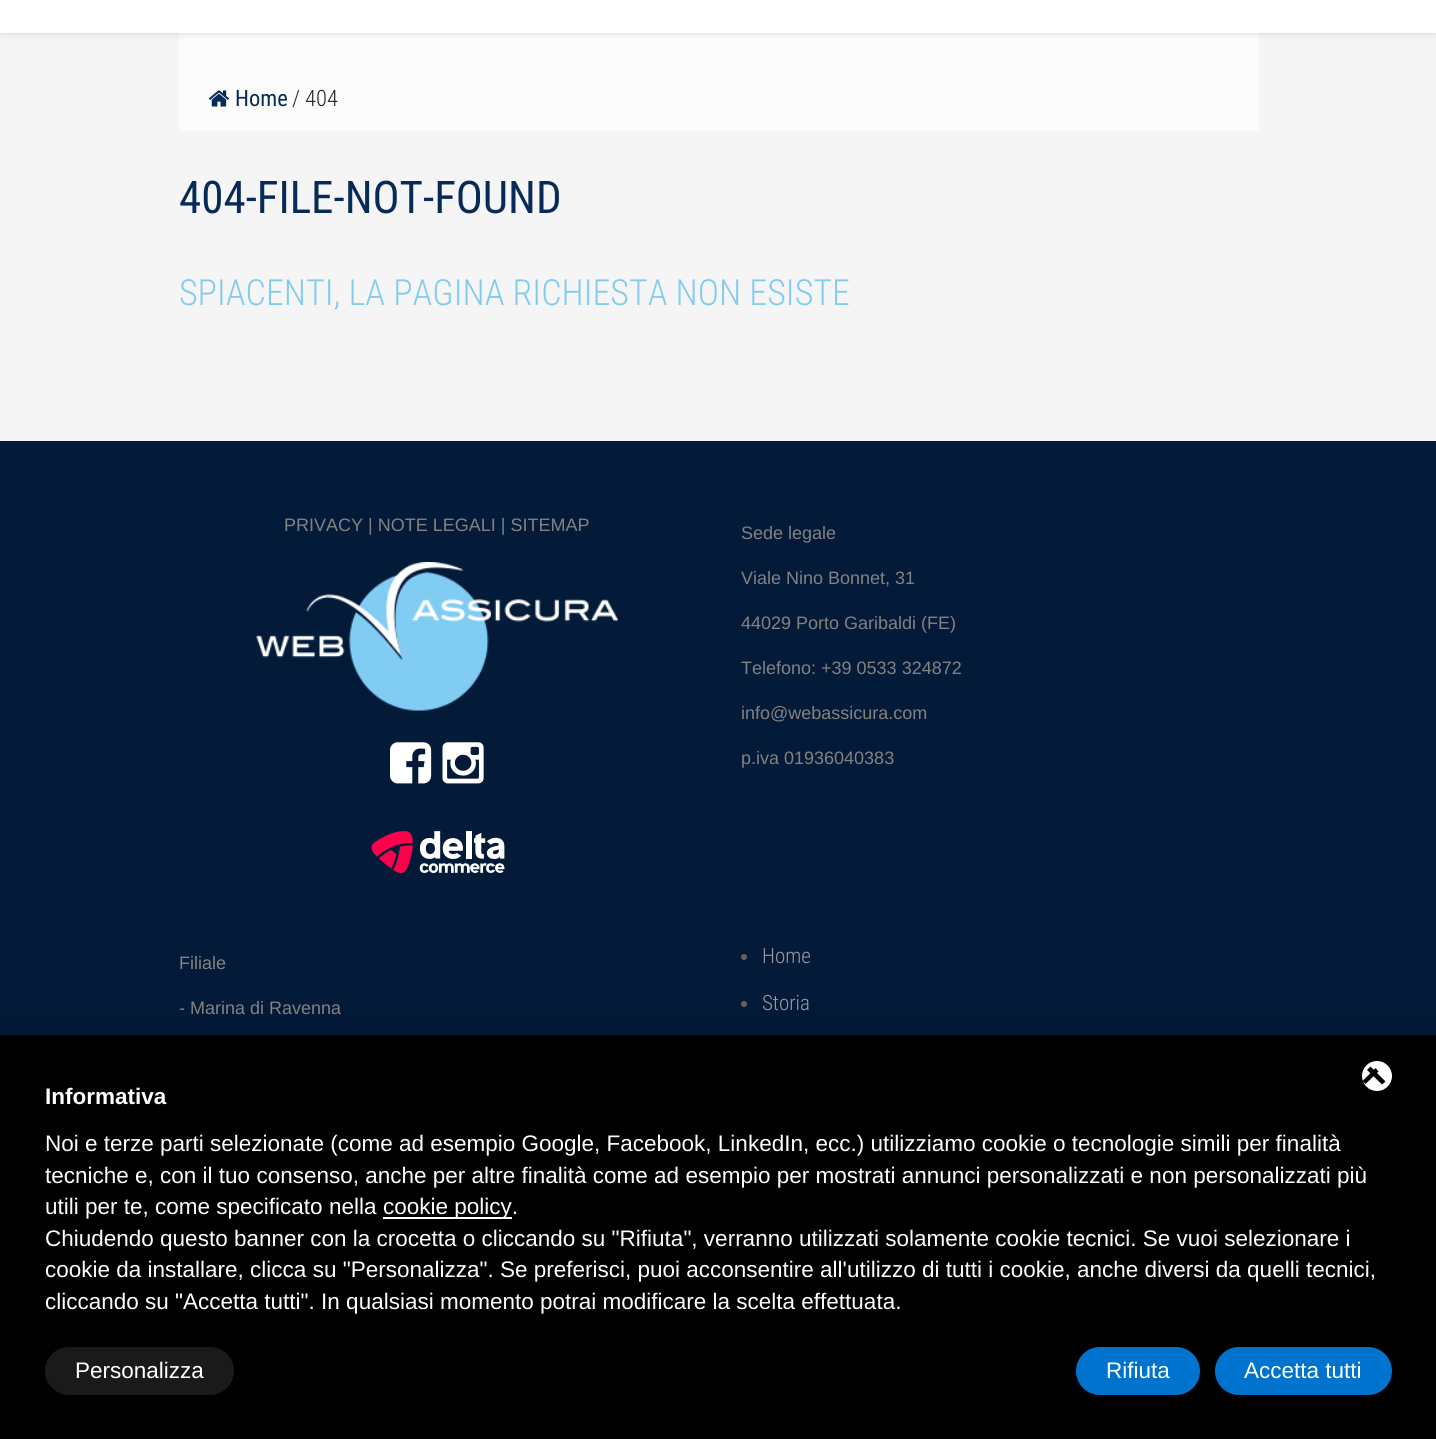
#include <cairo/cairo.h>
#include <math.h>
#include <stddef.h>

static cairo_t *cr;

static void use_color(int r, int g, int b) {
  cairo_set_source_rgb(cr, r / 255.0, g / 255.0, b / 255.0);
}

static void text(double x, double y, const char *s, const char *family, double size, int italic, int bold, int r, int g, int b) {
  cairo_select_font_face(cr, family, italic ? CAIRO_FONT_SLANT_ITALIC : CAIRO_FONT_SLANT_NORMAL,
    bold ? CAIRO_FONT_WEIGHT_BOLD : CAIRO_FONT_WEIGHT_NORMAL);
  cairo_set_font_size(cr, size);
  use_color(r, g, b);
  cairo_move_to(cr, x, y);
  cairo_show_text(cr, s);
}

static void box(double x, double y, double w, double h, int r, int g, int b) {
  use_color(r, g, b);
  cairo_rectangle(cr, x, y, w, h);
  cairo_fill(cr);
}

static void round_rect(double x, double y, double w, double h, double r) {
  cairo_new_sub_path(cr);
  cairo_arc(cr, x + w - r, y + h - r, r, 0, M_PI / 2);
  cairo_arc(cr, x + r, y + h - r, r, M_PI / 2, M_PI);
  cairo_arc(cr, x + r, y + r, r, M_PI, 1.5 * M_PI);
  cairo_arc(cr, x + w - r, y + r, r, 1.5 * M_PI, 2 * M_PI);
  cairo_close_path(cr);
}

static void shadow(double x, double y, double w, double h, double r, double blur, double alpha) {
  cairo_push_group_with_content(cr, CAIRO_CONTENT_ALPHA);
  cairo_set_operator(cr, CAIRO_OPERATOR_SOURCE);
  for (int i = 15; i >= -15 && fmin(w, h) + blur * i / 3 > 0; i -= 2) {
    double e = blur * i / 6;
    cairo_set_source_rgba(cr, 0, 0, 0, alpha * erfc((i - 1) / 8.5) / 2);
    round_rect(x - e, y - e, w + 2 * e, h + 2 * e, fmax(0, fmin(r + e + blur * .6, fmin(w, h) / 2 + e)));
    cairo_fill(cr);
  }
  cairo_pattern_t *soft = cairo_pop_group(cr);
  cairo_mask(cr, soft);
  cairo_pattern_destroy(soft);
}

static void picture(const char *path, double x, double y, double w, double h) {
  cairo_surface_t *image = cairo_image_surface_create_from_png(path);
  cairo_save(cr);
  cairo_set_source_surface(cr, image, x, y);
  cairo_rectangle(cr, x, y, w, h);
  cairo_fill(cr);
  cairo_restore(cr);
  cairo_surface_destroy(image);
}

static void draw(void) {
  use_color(3, 26, 56);
  cairo_paint(cr);
  box(0, 33, 1436, 408, 245, 245, 245);
  box(179, 33, 1080, 98, 252, 252, 252);
  use_color(0, 0, 0);
  shadow(0, -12, 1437, 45, 0, 4, 0.15);
  box(0, 0, 1436, 33, 255, 255, 255);
  picture("img_01.png", 208, 90, 21, 17);
  picture("img_02.png", 256, 562, 362, 149);
  picture("img_03.png", 390, 742, 42, 42);
  picture("img_04.png", 442, 742, 42, 42);
  picture("img_05.png", 371, 831, 134, 42);
  use_color(99, 99, 99);
  cairo_arc(cr, 744, 957, 3, 0, 2 * M_PI);
  cairo_fill(cr);
  cairo_arc(cr, 744, 1004, 3, 0, 2 * M_PI);
  cairo_fill(cr);
  use_color(0, 0, 0);
  shadow(0, 1050, 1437, 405, 0, 22.5, 0.33);
  box(0, 1035, 1436, 404, 0, 0, 0);
  use_color(255, 255, 255);
  cairo_arc(cr, 1377, 1076, 15, 0, 2 * M_PI);
  cairo_fill(cr);
  use_color(0, 0, 0);
  cairo_new_path(cr);
  cairo_move_to(cr, 1367, 1070);
  cairo_line_to(cr, 1370.5, 1066.5);
  cairo_line_to(cr, 1385.5, 1081.5);
  cairo_line_to(cr, 1382, 1084.5);
  cairo_close_path(cr);
  cairo_fill(cr);
  cairo_new_path(cr);
  cairo_move_to(cr, 1375.5, 1068);
  cairo_line_to(cr, 1378.5, 1071.5);
  cairo_line_to(cr, 1365.5, 1084);
  cairo_line_to(cr, 1362.5, 1081);
  cairo_close_path(cr);
  cairo_fill(cr);
  box(383, 1217, 129, 2, 255, 255, 255);
  use_color(26, 26, 26);
  round_rect(45, 1347, 189, 48, 24);
  cairo_fill(cr);
  use_color(0, 115, 206);
  round_rect(1076, 1347, 124, 48, 24);
  cairo_fill(cr);
  round_rect(1215, 1347, 177, 48, 24);
  cairo_fill(cr);
  text(235, 106, "Home", "Roboto Condensed", 22.5, 0, 0, 8, 42, 87);
  text(292, 106, "/ 404", "Roboto Condensed Light", 22.5, 0, 0, 37, 37, 37);
  text(179, 213, "404-FILE-NOT-FOUND", "Roboto Condensed", 45, 0, 0, 8, 42, 87);
  text(179, 305, "SPIACENTI, LA PAGINA RICHIESTA NON ESISTE", "Roboto Condensed Light", 36, 0, 0, 129, 204, 238);
  text(284, 531, "PRIVACY | NOTE LEGALI | SITEMAP", "Liberation Sans", 18, 0, 0, 131, 130, 130);
  text(741, 539, "Sede legale", "Liberation Sans", 18, 0, 0, 131, 130, 130);
  text(741, 584, "Viale Nino Bonnet, 31", "Liberation Sans", 18, 0, 0, 131, 130, 130);
  text(741, 629, "44029 Porto Garibaldi (FE)", "Liberation Sans", 18, 0, 0, 131, 130, 130);
  text(741, 674, "Telefono: +39 0533 324872", "Liberation Sans", 18, 0, 0, 131, 130, 130);
  text(741, 719, "info@webassicura.com", "Liberation Sans", 18, 0, 0, 131, 130, 130);
  text(741, 764, "p.iva 01936040383", "Liberation Sans", 18, 0, 0, 131, 130, 130);
  text(179, 969, "Filiale", "Liberation Sans", 18, 0, 0, 131, 130, 130);
  text(179, 1014, "- Marina di Ravenna", "Liberation Sans", 18, 0, 0, 131, 130, 130);
  text(762, 963, "Home", "Roboto Condensed Light", 21, 0, 0, 155, 155, 155);
  text(762, 1010, "Storia", "Roboto Condensed Light", 21, 0, 0, 155, 155, 155);
  text(45, 1104, "Informativa", "Liberation Sans", 22.5, 0, 1, 255, 255, 255);
  text(45, 1151, "Noi e terze parti selezionate (come ad esempio Google, Facebook, LinkedIn, ecc.) utilizziamo cookie o tecnologie simili per finalità", "Liberation Sans", 22.5, 0, 0, 255, 255, 255);
  text(45, 1183, "tecniche e, con il tuo consenso, anche per altre finalità come ad esempio per mostrati annunci personalizzati e non personalizzati più", "Liberation Sans", 22.5, 0, 0, 255, 255, 255);
  text(45, 1214, "utili per te, come specificato nella", "Liberation Sans", 22.5, 0, 0, 255, 255, 255);
  text(383, 1214, "cookie policy.", "Liberation Sans", 22.5, 0, 0, 255, 255, 255);
  text(45, 1246, "Chiudendo questo banner con la crocetta o cliccando su \"Rifiuta\", verranno utilizzati solamente cookie tecnici. Se vuoi selezionare i", "Liberation Sans", 22.5, 0, 0, 255, 255, 255);
  text(45, 1277, "cookie da installare, clicca su \"Personalizza\". Se preferisci, puoi acconsentire all'utilizzo di tutti i cookie, anche diversi da quelli tecnici,", "Liberation Sans", 22.5, 0, 0, 255, 255, 255);
  text(45, 1309, "cliccando su \"Accetta tutti\". In qualsiasi momento potrai modificare la scelta effettuata.", "Liberation Sans", 22.5, 0, 0, 255, 255, 255);
  text(75, 1378, "Personalizza", "Liberation Sans", 22.5, 0, 0, 255, 255, 255);
  text(1106, 1378, "Rifiuta", "Liberation Sans", 22.5, 0, 0, 255, 255, 255);
  text(1244, 1378, "Accetta tutti", "Liberation Sans", 22.5, 0, 0, 255, 255, 255);
}

int main(void) {
  cairo_surface_t *surface = cairo_image_surface_create(CAIRO_FORMAT_RGB24, 1436, 1439);
  cr = cairo_create(surface);
  cairo_font_options_t *options = cairo_font_options_create();
  cairo_font_options_set_hint_metrics(options, CAIRO_HINT_METRICS_OFF);
  cairo_font_options_set_hint_style(options, CAIRO_HINT_STYLE_NONE);
  cairo_set_font_options(cr, options);
  cairo_set_miter_limit(cr, 4);
  draw();
  cairo_surface_write_to_png(surface, "out.png");
  cairo_font_options_destroy(options);
  cairo_destroy(cr);
  cairo_surface_destroy(surface);
  return 0;
}
